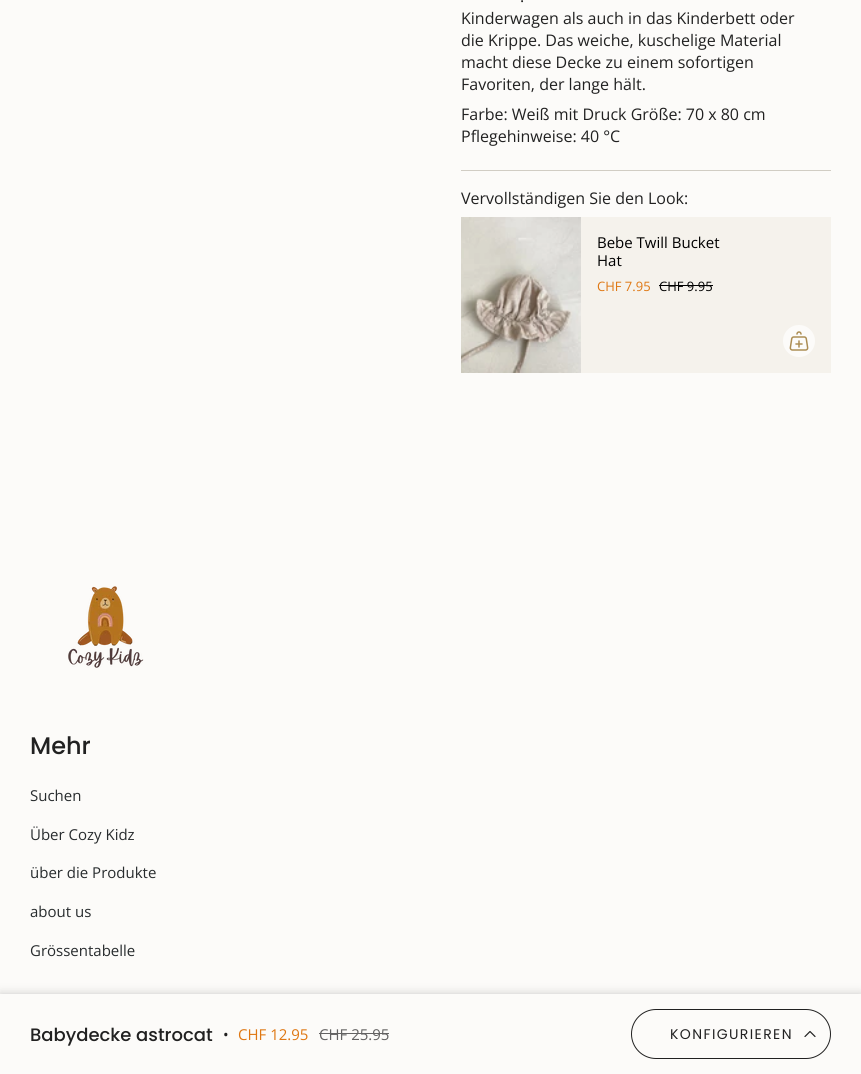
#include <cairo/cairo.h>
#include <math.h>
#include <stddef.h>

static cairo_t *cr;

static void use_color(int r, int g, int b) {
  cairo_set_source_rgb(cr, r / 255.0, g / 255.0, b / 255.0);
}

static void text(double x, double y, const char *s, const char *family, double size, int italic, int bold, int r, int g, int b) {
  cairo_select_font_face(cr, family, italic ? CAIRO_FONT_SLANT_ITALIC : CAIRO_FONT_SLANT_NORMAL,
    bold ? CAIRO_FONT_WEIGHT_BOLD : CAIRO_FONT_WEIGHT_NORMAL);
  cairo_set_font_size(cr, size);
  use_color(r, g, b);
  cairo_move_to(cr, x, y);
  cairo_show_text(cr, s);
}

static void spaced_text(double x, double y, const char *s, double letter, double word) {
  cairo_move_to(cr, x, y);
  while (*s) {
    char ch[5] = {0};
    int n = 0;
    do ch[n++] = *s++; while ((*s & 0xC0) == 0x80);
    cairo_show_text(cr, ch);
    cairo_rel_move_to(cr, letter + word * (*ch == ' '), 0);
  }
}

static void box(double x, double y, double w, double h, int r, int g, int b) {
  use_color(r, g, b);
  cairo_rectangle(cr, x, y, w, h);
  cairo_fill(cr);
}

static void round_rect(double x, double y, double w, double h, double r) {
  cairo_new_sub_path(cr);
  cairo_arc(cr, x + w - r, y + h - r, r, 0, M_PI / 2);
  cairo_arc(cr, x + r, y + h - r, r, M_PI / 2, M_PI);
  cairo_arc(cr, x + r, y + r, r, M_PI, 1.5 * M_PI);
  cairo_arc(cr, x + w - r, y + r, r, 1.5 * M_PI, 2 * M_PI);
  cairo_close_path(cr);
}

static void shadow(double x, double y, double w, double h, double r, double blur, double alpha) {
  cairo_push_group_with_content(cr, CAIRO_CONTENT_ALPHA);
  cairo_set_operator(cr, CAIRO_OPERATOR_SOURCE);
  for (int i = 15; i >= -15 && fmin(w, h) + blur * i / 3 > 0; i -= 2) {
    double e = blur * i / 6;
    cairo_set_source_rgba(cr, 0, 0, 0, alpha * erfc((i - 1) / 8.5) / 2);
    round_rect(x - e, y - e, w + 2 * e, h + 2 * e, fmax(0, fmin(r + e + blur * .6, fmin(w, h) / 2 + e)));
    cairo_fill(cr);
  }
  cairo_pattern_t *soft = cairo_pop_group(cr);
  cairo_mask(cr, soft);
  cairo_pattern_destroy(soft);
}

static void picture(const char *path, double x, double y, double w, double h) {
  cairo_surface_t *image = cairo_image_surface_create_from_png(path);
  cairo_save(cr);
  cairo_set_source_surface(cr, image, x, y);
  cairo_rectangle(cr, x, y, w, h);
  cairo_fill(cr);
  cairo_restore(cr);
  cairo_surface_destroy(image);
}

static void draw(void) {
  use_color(252, 251, 249);
  cairo_paint(cr);
  box(461, 170, 370, 1, 209, 205, 196);
  box(581, 217, 250, 156, 245, 242, 236);
  picture("img_01.png", 461, 217, 120, 156);
  box(659, 285, 54, 1, 0, 0, 0);
  use_color(252, 251, 249);
  cairo_arc(cr, 799, 341, 16, 0, 2 * M_PI);
  cairo_fill(cr);
  picture("img_02.png", 789, 331, 20, 20);
  use_color(0, 0, 0);
  shadow(0, 994, 861, 80, 0, 5, 0.2);
  box(0, 994, 861, 80, 252, 251, 249);
  box(319, 1033, 70, 1, 99, 98, 98);
  round_rect(631.5, 1009.5, 199, 49, 24.5);
  use_color(33, 33, 33);
  cairo_set_line_width(cr, 1);
  cairo_stroke(cr);
  cairo_new_path(cr);
  cairo_move_to(cr, 805, 1036.5);
  cairo_line_to(cr, 810, 1031.5);
  cairo_line_to(cr, 815, 1036.5);
  cairo_set_line_width(cr, 1.2);
  cairo_set_line_cap(cr, CAIRO_LINE_CAP_ROUND);
  cairo_set_line_join(cr, CAIRO_LINE_JOIN_ROUND);
  cairo_stroke(cr);
  picture("img_03.png", 68, 586, 76, 82);
  text(520, 2, ".", "Open Sans", 16, 0, 0, 33, 33, 33);
  text(461, 24, "Kinderwagen als auch in das Kinderbett oder", "Open Sans", 16, 0, 0, 33, 33, 33);
  text(461, 46, "die Krippe. Das weiche, kuschelige Material", "Open Sans", 16, 0, 0, 33, 33, 33);
  text(461, 68, "macht diese Decke zu einem sofortigen", "Open Sans", 16, 0, 0, 33, 33, 33);
  text(461, 90, "Favoriten, der lange hält.", "Open Sans", 16, 0, 0, 33, 33, 33);
  text(461, 120, "Farbe: Weiß mit Druck Größe: 70 x 80 cm", "Open Sans", 16, 0, 0, 33, 33, 33);
  text(461, 142, "Pflegehinweise: 40 °C", "Open Sans", 16, 0, 0, 33, 33, 33);
  text(461, 204, "Vervollständigen Sie den Look:", "Open Sans", 16, 0, 0, 33, 33, 33);
  text(597, 248, "Bebe Twill Bucket", "Open Sans", 15, 0, 0, 0, 0, 0);
  text(597, 266, "Hat", "Open Sans", 15, 0, 0, 0, 0, 0);
  text(597, 291, "CHF 7.95", "Open Sans", 13, 0, 0, 223, 119, 18);
  text(659, 291, "CHF 9.95", "Open Sans", 13, 0, 0, 0, 0, 0);
  text(30, 1041, "Babydecke astrocat", "Poppins Medium", 18, 0, 0, 33, 33, 33);
  text(223, 1040, "•", "Open Sans", 15, 0, 0, 33, 33, 33);
  text(238, 1040, "CHF 12.95", "Open Sans", 15, 0, 0, 223, 119, 18);
  text(319, 1040, "CHF 25.95", "Open Sans", 15, 0, 0, 99, 98, 98);
  cairo_select_font_face(cr, "Poppins", CAIRO_FONT_SLANT_NORMAL, CAIRO_FONT_WEIGHT_NORMAL);
  cairo_set_font_size(cr, 14);
  use_color(33, 33, 33);
  spaced_text(670, 1039, "KONFIGURIEREN", 1.4, 0);
  text(30, 754, "Mehr", "Poppins Medium", 24, 0, 0, 33, 33, 33);
  text(30, 801, "Suchen", "Open Sans", 15, 0, 0, 40, 44, 46);
  text(30, 840, "Über Cozy Kidz", "Open Sans", 15, 0, 0, 40, 44, 46);
  text(30, 878, "über die Produkte", "Open Sans", 15, 0, 0, 40, 44, 46);
  text(30, 917, "about us", "Open Sans", 15, 0, 0, 40, 44, 46);
  text(30, 956, "Grössentabelle", "Open Sans", 15, 0, 0, 40, 44, 46);
}

int main(void) {
  cairo_surface_t *surface = cairo_image_surface_create(CAIRO_FORMAT_RGB24, 861, 1074);
  cr = cairo_create(surface);
  cairo_font_options_t *options = cairo_font_options_create();
  cairo_font_options_set_hint_metrics(options, CAIRO_HINT_METRICS_OFF);
  cairo_font_options_set_hint_style(options, CAIRO_HINT_STYLE_NONE);
  cairo_set_font_options(cr, options);
  cairo_set_miter_limit(cr, 4);
  draw();
  cairo_surface_write_to_png(surface, "out.png");
  cairo_font_options_destroy(options);
  cairo_destroy(cr);
  cairo_surface_destroy(surface);
  return 0;
}
